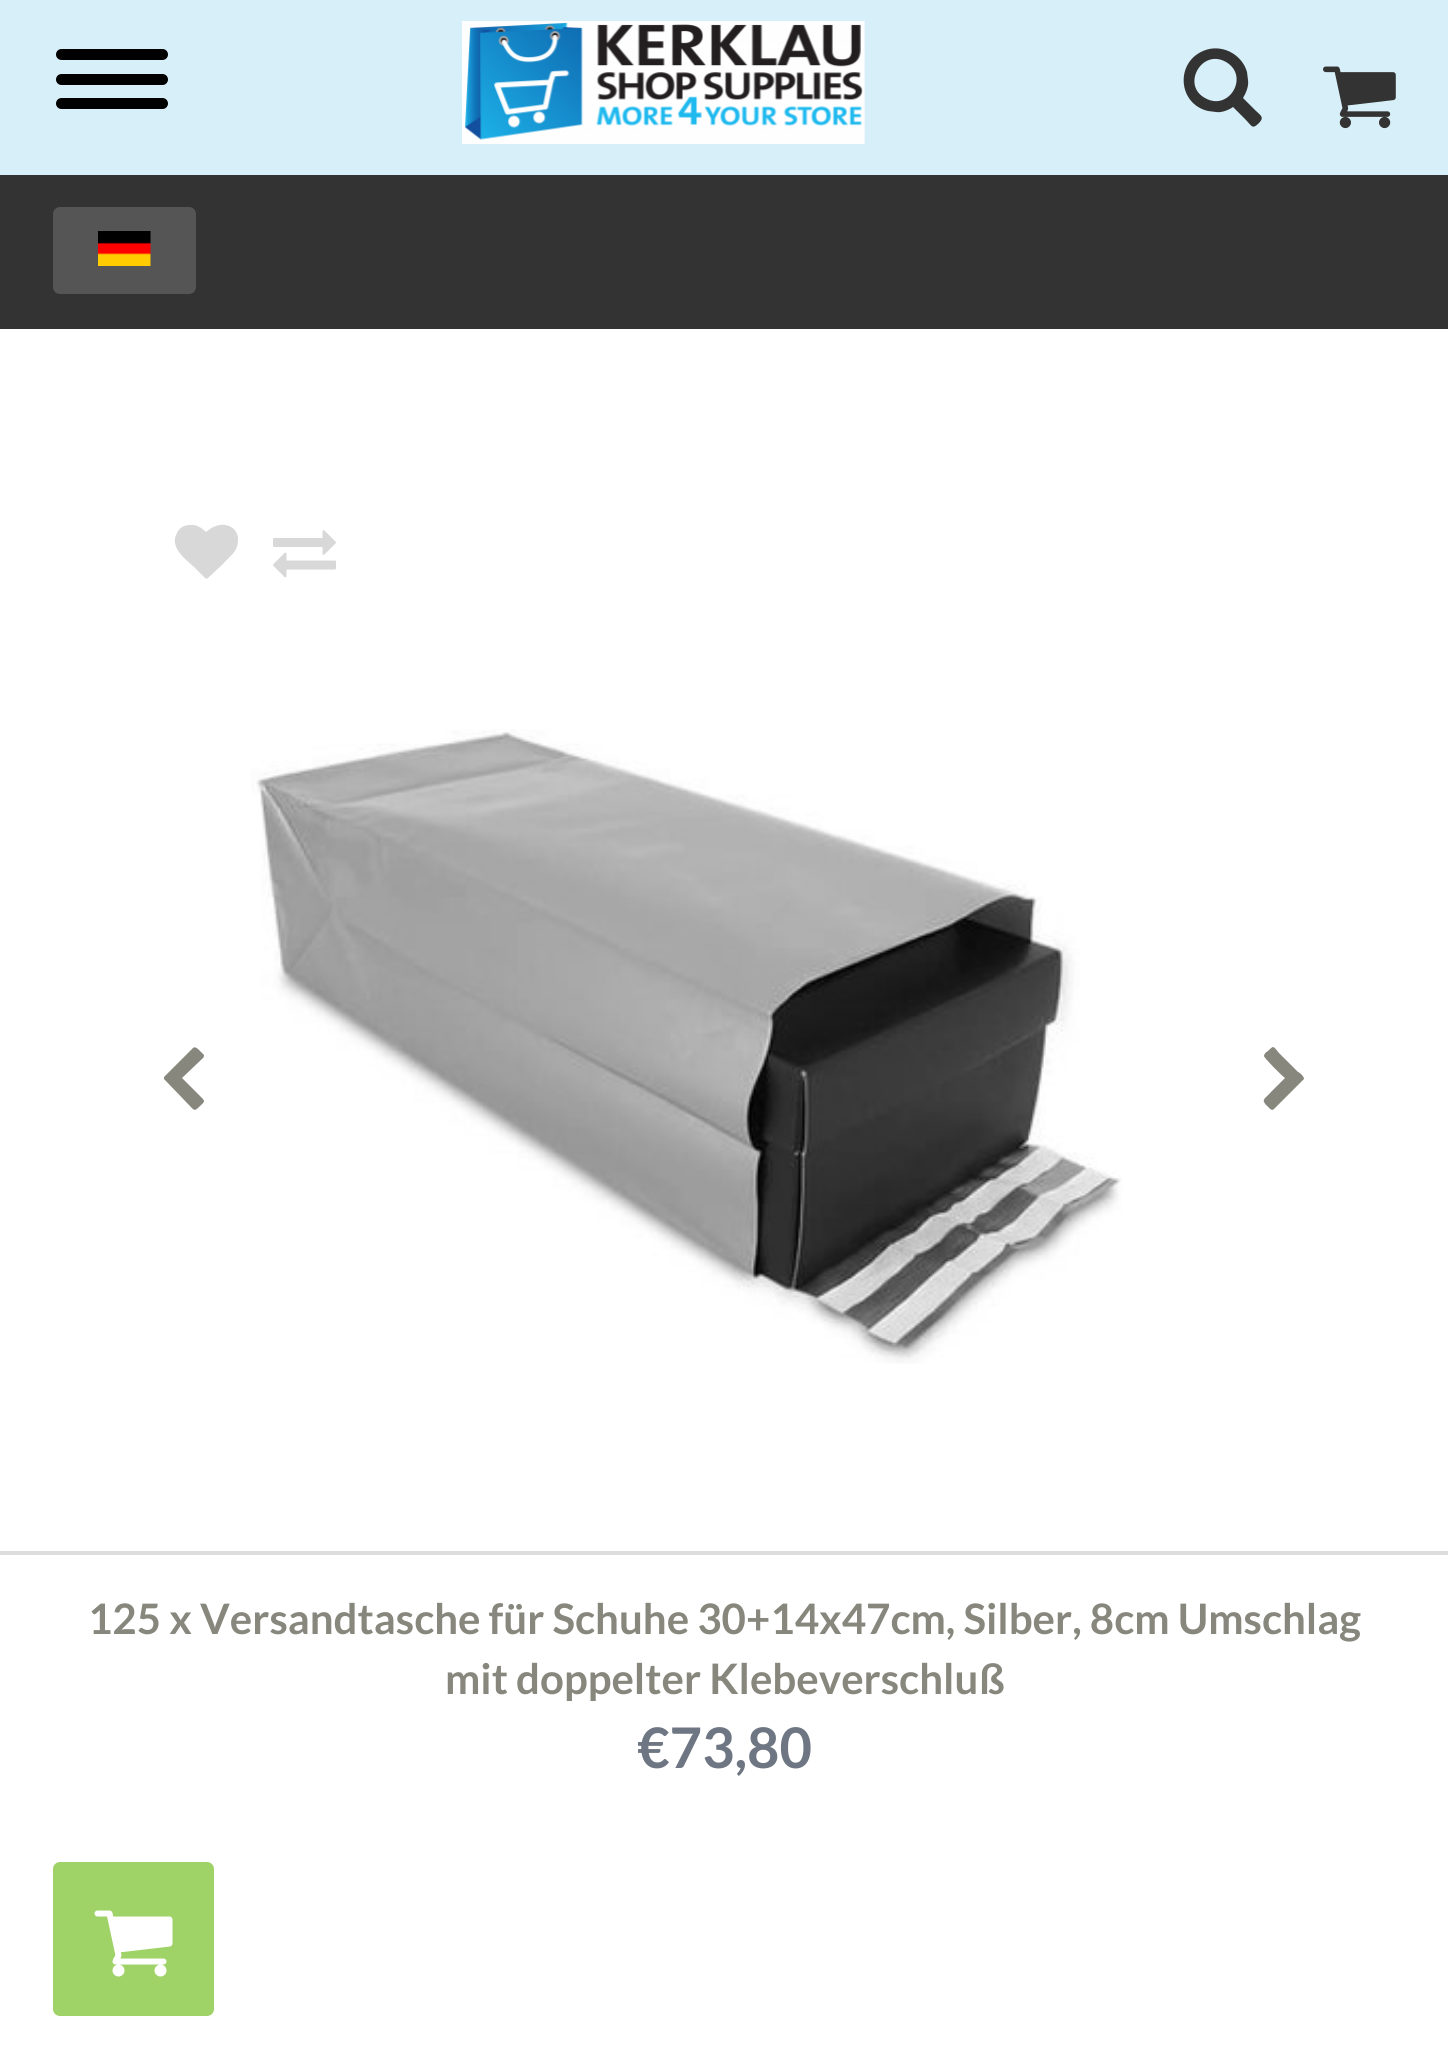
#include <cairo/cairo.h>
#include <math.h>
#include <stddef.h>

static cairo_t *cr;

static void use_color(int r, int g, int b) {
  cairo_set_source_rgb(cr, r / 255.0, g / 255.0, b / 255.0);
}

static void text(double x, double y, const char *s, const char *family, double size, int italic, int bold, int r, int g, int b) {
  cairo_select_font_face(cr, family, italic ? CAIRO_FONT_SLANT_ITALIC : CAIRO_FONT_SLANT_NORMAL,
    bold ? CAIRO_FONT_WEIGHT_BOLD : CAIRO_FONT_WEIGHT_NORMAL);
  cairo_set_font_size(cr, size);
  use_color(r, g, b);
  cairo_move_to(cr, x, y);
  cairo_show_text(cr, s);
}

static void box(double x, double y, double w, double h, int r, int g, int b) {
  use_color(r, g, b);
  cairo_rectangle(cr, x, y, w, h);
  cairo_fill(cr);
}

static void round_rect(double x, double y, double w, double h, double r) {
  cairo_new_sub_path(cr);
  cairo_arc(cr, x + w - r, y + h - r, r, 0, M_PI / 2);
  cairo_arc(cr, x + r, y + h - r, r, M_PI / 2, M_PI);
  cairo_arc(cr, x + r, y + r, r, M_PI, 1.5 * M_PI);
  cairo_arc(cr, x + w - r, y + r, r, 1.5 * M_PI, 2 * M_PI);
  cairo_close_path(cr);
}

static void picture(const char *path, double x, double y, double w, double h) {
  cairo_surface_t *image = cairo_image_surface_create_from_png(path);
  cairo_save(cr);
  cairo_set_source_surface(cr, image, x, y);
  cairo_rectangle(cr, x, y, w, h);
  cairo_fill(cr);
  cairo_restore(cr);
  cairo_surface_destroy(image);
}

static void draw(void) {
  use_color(255, 255, 255);
  cairo_paint(cr);
  box(0, 0, 1448, 175, 215, 239, 249);
  use_color(0, 0, 0);
  round_rect(56, 49, 112, 11, 5.5);
  cairo_fill(cr);
  round_rect(56, 74, 112, 11, 5.5);
  cairo_fill(cr);
  round_rect(56, 98, 112, 11, 5.5);
  cairo_fill(cr);
  picture("img_01.png", 462, 21, 403, 123);
  use_color(51, 51, 51);
  cairo_new_path(cr);
  cairo_move_to(cr, 1203, 51);
  cairo_curve_to(cr, 1221, 43, 1242, 54, 1247, 72);
  cairo_line_to(cr, 1248, 80);
  cairo_curve_to(cr, 1249, 86, 1246, 93, 1243, 98);
  cairo_line_to(cr, 1255, 110);
  cairo_curve_to(cr, 1260, 115, 1265, 117, 1259, 123);
  cairo_curve_to(cr, 1252, 130, 1252, 126, 1245, 119);
  cairo_line_to(cr, 1233, 107);
  cairo_curve_to(cr, 1229, 110, 1221, 113, 1216, 112);
  cairo_line_to(cr, 1208, 111);
  cairo_curve_to(cr, 1178, 104, 1175, 63, 1203, 51);
  cairo_close_path(cr);
  cairo_move_to(cr, 1226, 62);
  cairo_curve_to(cr, 1202, 48, 1181, 85, 1205, 98);
  cairo_curve_to(cr, 1229, 112, 1250, 76, 1226, 62);
  cairo_close_path(cr);
  cairo_fill(cr);
  picture("img_02.png", 1323, 66, 73, 63);
  box(0, 175, 1448, 154, 51, 51, 51);
  use_color(85, 85, 85);
  round_rect(53, 207, 143, 87, 7);
  cairo_fill(cr);
  picture("img_03.png", 98, 231, 53, 35);
  use_color(216, 216, 216);
  cairo_new_path(cr);
  cairo_move_to(cr, 208, 578);
  cairo_curve_to(cr, 207, 579, 206, 579, 205, 578);
  cairo_line_to(cr, 194, 567);
  cairo_curve_to(cr, 185, 559, 169, 547, 177, 533);
  cairo_curve_to(cr, 179, 528, 184, 525, 190, 525);
  cairo_curve_to(cr, 196, 524, 202, 528, 206, 532);
  cairo_curve_to(cr, 213, 526, 222, 522, 231, 527);
  cairo_curve_to(cr, 235, 529, 237, 533, 238, 537);
  cairo_curve_to(cr, 238, 541, 238, 545, 236, 549);
  cairo_curve_to(cr, 233, 555, 227, 559, 223, 564);
  cairo_close_path(cr);
  cairo_fill(cr);
  picture("img_04.png", 273, 530, 63, 48);
  picture("img_05.png", 251, 729, 871, 635);
  use_color(135, 135, 125);
  cairo_new_path(cr);
  cairo_move_to(cr, 203, 1058);
  cairo_line_to(cr, 182, 1078);
  cairo_line_to(cr, 200, 1096);
  cairo_curve_to(cr, 206, 1102, 205, 1101, 199, 1107);
  cairo_curve_to(cr, 194, 1112, 194, 1110, 188, 1104);
  cairo_line_to(cr, 164, 1079);
  cairo_line_to(cr, 164, 1077);
  cairo_line_to(cr, 193, 1048);
  cairo_curve_to(cr, 195, 1046, 198, 1049, 199, 1050);
  cairo_line_to(cr, 204, 1055);
  cairo_curve_to(cr, 204, 1056, 204, 1057, 203, 1058);
  cairo_close_path(cr);
  cairo_fill(cr);
  cairo_new_path(cr);
  cairo_move_to(cr, 1303, 1080);
  cairo_line_to(cr, 1274, 1109);
  cairo_curve_to(cr, 1271, 1112, 1268, 1106, 1266, 1105);
  cairo_curve_to(cr, 1261, 1099, 1265, 1099, 1271, 1092);
  cairo_line_to(cr, 1285, 1078);
  cairo_curve_to(cr, 1282, 1076, 1264, 1058, 1264, 1056);
  cairo_curve_to(cr, 1264, 1054, 1266, 1052, 1268, 1051);
  cairo_curve_to(cr, 1274, 1045, 1273, 1046, 1279, 1053);
  cairo_line_to(cr, 1298, 1072);
  cairo_curve_to(cr, 1299, 1072, 1304, 1076, 1304, 1079);
  cairo_close_path(cr);
  cairo_fill(cr);
  box(0, 1551, 1448, 4, 221, 221, 221);
  use_color(159, 210, 103);
  round_rect(53, 1862, 161, 154, 7);
  cairo_fill(cr);
  picture("img_06.png", 94, 1910, 79, 67);
  text(88, 1634, "125 x Versandtasche für Schuhe 30+14x47cm, Silber, 8cm Umschlag", "Lato", 42, 0, 1, 135, 135, 125);
  text(445, 1694, "mit doppelter Klebeverschluß", "Lato", 42, 0, 1, 135, 135, 125);
  text(637, 1768, "€73,80", "Lato", 56, 0, 1, 109, 118, 130);
}

int main(void) {
  cairo_surface_t *surface = cairo_image_surface_create(CAIRO_FORMAT_RGB24, 1448, 2049);
  cr = cairo_create(surface);
  cairo_font_options_t *options = cairo_font_options_create();
  cairo_font_options_set_hint_metrics(options, CAIRO_HINT_METRICS_OFF);
  cairo_font_options_set_hint_style(options, CAIRO_HINT_STYLE_NONE);
  cairo_set_font_options(cr, options);
  cairo_set_miter_limit(cr, 4);
  draw();
  cairo_surface_write_to_png(surface, "out.png");
  cairo_font_options_destroy(options);
  cairo_destroy(cr);
  cairo_surface_destroy(surface);
  return 0;
}
